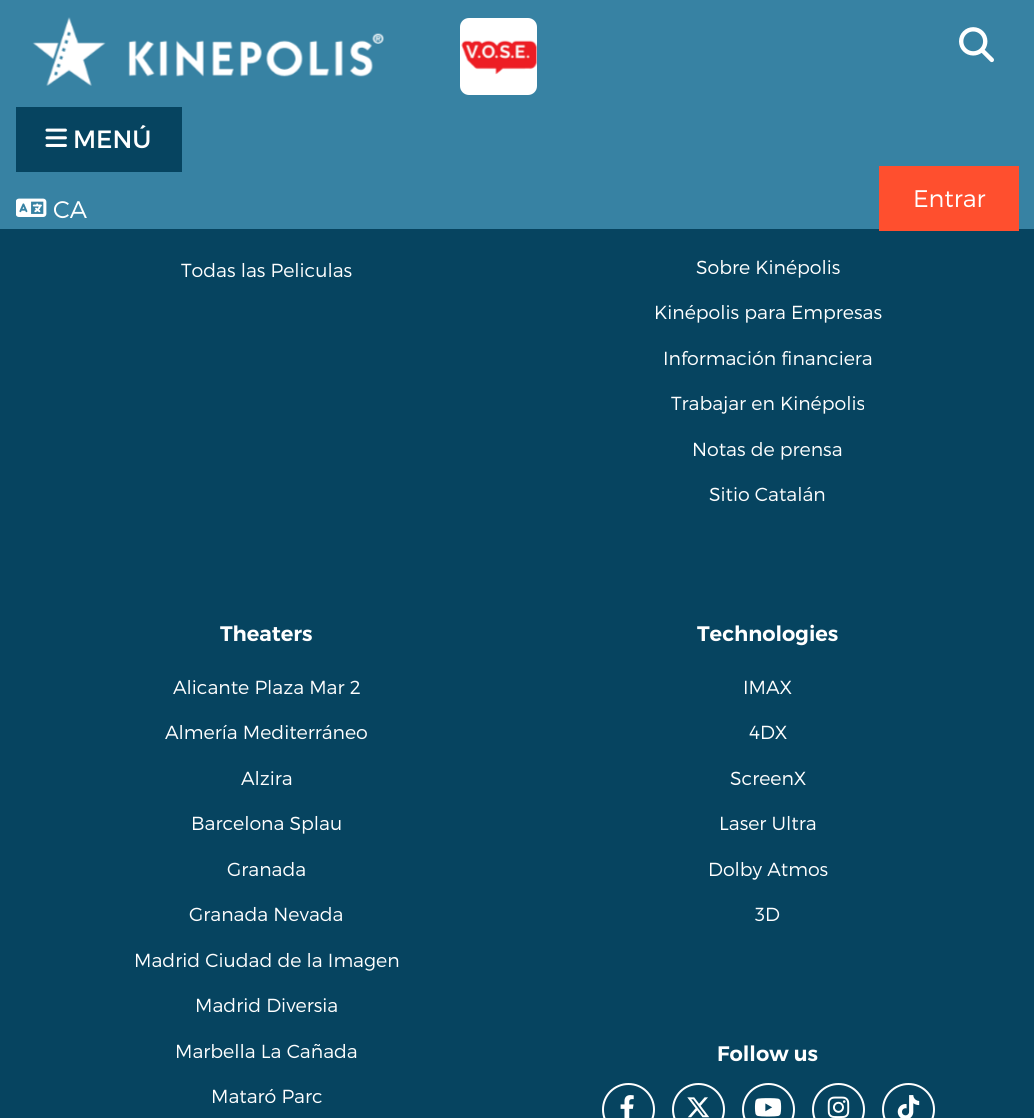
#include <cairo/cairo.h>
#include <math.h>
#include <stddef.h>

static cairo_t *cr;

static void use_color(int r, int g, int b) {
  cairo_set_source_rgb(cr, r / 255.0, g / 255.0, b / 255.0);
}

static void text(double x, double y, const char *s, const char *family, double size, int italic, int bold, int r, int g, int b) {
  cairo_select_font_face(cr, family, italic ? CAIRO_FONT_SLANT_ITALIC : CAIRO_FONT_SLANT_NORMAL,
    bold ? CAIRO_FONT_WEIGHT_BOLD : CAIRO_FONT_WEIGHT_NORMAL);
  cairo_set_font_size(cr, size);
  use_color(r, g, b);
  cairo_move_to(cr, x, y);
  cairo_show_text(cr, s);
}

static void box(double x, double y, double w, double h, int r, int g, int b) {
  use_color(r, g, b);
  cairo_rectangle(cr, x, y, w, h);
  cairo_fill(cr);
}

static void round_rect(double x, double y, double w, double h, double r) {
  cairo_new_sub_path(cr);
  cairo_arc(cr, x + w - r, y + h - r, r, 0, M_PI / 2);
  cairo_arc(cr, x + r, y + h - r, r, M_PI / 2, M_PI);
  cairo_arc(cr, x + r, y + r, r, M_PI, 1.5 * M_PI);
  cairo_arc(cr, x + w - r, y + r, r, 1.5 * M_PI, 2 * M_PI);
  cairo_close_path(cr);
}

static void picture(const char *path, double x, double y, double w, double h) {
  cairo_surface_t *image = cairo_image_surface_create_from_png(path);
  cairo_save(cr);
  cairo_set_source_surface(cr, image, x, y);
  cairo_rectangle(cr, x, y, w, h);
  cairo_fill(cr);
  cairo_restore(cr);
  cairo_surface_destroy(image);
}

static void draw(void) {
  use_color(6, 68, 96);
  cairo_paint(cr);
  box(0, 0, 1034, 229, 55, 130, 163);
  picture("img_01.png", 32, 17, 352, 69);
  use_color(255, 255, 255);
  round_rect(460, 18, 77, 77, 9);
  cairo_fill(cr);
  picture("img_02.png", 461, 40, 76, 35);
  picture("img_03.png", 959, 27, 35, 36);
  box(16, 107, 166, 65, 6, 68, 96);
  picture("img_04.png", 45, 128, 22, 19);
  picture("img_05.png", 16, 198, 31, 19);
  box(879, 166, 140, 65, 255, 79, 46);
  cairo_arc(cr, 628.5, 1109.5, 25.5, 0, 2 * M_PI);
  use_color(255, 255, 255);
  cairo_stroke(cr);
  picture("img_06.png", 620, 1095, 14, 23);
  cairo_arc(cr, 698.5, 1109.5, 25.5, 0, 2 * M_PI);
  cairo_stroke(cr);
  picture("img_07.png", 687, 1097, 23, 21);
  cairo_arc(cr, 768.5, 1109.5, 25.5, 0, 2 * M_PI);
  cairo_stroke(cr);
  picture("img_08.png", 754, 1098, 28, 19);
  cairo_arc(cr, 838.5, 1109.5, 25.5, 0, 2 * M_PI);
  cairo_stroke(cr);
  picture("img_09.png", 827, 1096, 23, 22);
  cairo_arc(cr, 908.5, 1109.5, 25.5, 0, 2 * M_PI);
  cairo_stroke(cr);
  picture("img_10.png", 897, 1095, 23, 23);
  text(73, 148, "MENÚ", "Montserrat", 25, 0, 0, 255, 255, 255);
  text(53, 218, "CA", "Montserrat Light", 24, 0, 0, 255, 255, 255);
  text(913, 207, "Entrar", "Montserrat Light", 24, 0, 0, 255, 255, 255);
  text(181, 277, "Todas las Peliculas", "Montserrat Light", 18.9, 0, 0, 255, 255, 255);
  text(696, 274, "Sobre Kinépolis", "Montserrat Light", 18.9, 0, 0, 255, 255, 255);
  text(654, 319, "Kinépolis para Empresas", "Montserrat Light", 18.9, 0, 0, 255, 255, 255);
  text(663, 365, "Información financiera", "Montserrat Light", 18.9, 0, 0, 255, 255, 255);
  text(671, 410, "Trabajar en Kinépolis", "Montserrat Light", 18.9, 0, 0, 255, 255, 255);
  text(692, 456, "Notas de prensa", "Montserrat Light", 18.9, 0, 0, 255, 255, 255);
  text(709, 501, "Sitio Catalán", "Montserrat Light", 18.9, 0, 0, 255, 255, 255);
  text(220, 641, "Theaters", "Montserrat SemiBold", 21, 0, 0, 255, 255, 255);
  text(173, 694, "Alicante Plaza Mar 2", "Montserrat Light", 18.9, 0, 0, 255, 255, 255);
  text(165, 739, "Almería Mediterráneo", "Montserrat Light", 18.9, 0, 0, 255, 255, 255);
  text(241, 785, "Alzira", "Montserrat Light", 18.9, 0, 0, 255, 255, 255);
  text(191, 830, "Barcelona Splau", "Montserrat Light", 18.9, 0, 0, 255, 255, 255);
  text(227, 876, "Granada", "Montserrat Light", 18.9, 0, 0, 255, 255, 255);
  text(189, 921, "Granada Nevada", "Montserrat Light", 18.9, 0, 0, 255, 255, 255);
  text(134, 967, "Madrid Ciudad de la Imagen", "Montserrat Light", 18.9, 0, 0, 255, 255, 255);
  text(195, 1012, "Madrid Diversia", "Montserrat Light", 18.9, 0, 0, 255, 255, 255);
  text(175, 1058, "Marbella La Cañada", "Montserrat Light", 18.9, 0, 0, 255, 255, 255);
  text(211, 1103, "Mataró Parc", "Montserrat Light", 18.9, 0, 0, 255, 255, 255);
  text(697, 641, "Technologies", "Montserrat SemiBold", 21, 0, 0, 255, 255, 255);
  text(743, 694, "IMAX", "Montserrat Light", 18.9, 0, 0, 255, 255, 255);
  text(749, 739, "4DX", "Montserrat Light", 18.9, 0, 0, 255, 255, 255);
  text(730, 785, "ScreenX", "Montserrat Light", 18.9, 0, 0, 255, 255, 255);
  text(719, 830, "Laser Ultra", "Montserrat Light", 18.9, 0, 0, 255, 255, 255);
  text(708, 876, "Dolby Atmos", "Montserrat Light", 18.9, 0, 0, 255, 255, 255);
  text(755, 921, "3D", "Montserrat Light", 18.9, 0, 0, 255, 255, 255);
  text(717, 1061, "Follow us", "Montserrat SemiBold", 21, 0, 0, 255, 255, 255);
}

int main(void) {
  cairo_surface_t *surface = cairo_image_surface_create(CAIRO_FORMAT_RGB24, 1034, 1118);
  cr = cairo_create(surface);
  cairo_font_options_t *options = cairo_font_options_create();
  cairo_font_options_set_hint_metrics(options, CAIRO_HINT_METRICS_OFF);
  cairo_font_options_set_hint_style(options, CAIRO_HINT_STYLE_NONE);
  cairo_set_font_options(cr, options);
  cairo_set_miter_limit(cr, 4);
  draw();
  cairo_surface_write_to_png(surface, "out.png");
  cairo_font_options_destroy(options);
  cairo_destroy(cr);
  cairo_surface_destroy(surface);
  return 0;
}
